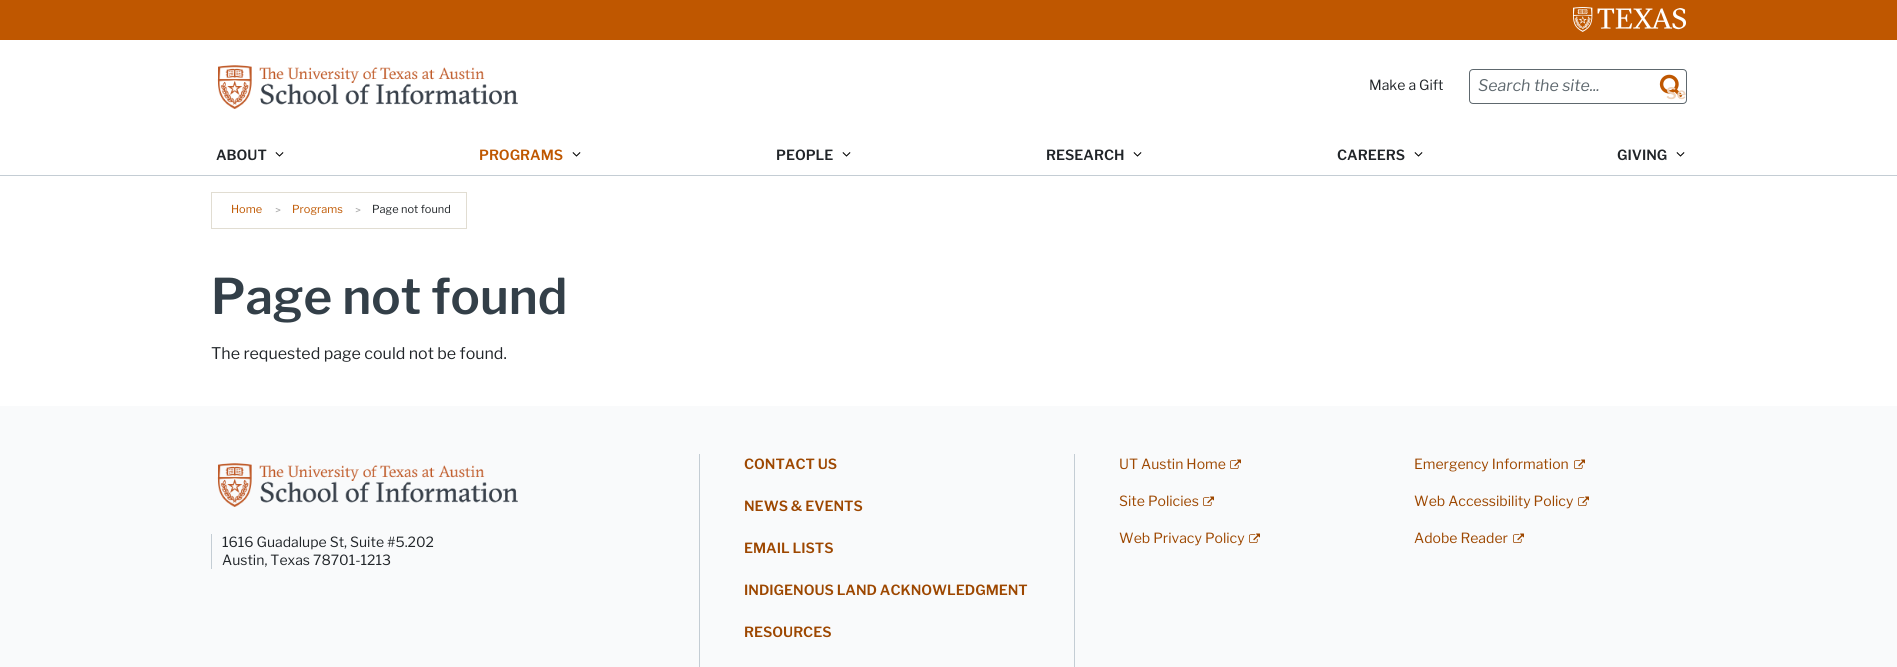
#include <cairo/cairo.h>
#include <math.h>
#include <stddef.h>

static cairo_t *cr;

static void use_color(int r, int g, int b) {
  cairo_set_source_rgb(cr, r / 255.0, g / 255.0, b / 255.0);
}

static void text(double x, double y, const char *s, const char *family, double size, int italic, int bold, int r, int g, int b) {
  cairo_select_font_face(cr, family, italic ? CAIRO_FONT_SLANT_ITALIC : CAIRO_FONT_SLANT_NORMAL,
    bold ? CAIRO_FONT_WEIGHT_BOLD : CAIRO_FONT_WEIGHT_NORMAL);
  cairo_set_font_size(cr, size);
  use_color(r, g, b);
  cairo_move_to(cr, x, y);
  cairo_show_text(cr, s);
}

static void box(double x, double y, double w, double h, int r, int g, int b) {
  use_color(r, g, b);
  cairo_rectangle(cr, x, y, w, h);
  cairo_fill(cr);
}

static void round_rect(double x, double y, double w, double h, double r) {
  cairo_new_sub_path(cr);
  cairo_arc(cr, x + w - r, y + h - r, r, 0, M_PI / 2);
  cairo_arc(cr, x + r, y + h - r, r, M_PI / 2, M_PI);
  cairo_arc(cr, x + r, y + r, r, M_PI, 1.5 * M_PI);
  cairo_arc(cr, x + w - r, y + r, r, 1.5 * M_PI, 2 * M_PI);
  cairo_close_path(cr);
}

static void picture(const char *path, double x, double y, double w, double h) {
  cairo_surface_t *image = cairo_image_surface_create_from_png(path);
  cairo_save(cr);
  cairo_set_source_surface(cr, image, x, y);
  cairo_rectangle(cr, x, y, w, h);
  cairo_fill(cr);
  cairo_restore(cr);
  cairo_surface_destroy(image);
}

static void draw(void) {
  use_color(255, 255, 255);
  cairo_paint(cr);
  box(0, 0, 1897, 40, 191, 87, 0);
  picture("img_01.png", 1573, 7, 113, 25);
  box(0, 175, 1897, 1, 196, 205, 212);
  picture("img_02.png", 217, 65, 301, 44);
  round_rect(1469.5, 69.5, 217, 34, 3.5);
  use_color(94, 104, 110);
  cairo_set_line_width(cr, 1);
  cairo_stroke(cr);
  picture("img_03.png", 1659, 74, 24, 23);
  picture("img_04.png", 275, 152, 9, 5);
  picture("img_04.png", 572, 152, 9, 5);
  picture("img_04.png", 842, 152, 9, 5);
  picture("img_04.png", 1133, 152, 9, 5);
  picture("img_04.png", 1414, 152, 9, 5);
  picture("img_04.png", 1676, 152, 9, 5);
  box(211, 192, 256, 1, 225, 221, 210);
  box(211, 228, 131, 1, 225, 221, 210);
  box(211, 192, 1, 37, 225, 221, 210);
  box(466, 192, 1, 37, 225, 221, 210);
  box(342, 228, 125, 1, 225, 221, 210);
  box(0, 406, 1897, 261, 249, 250, 251);
  box(699, 454, 1, 213, 196, 205, 212);
  box(1074, 454, 1, 213, 196, 205, 212);
  picture("img_05.png", 1230, 459, 11, 10);
  picture("img_05.png", 1574, 459, 11, 10);
  picture("img_05.png", 1203, 496, 11, 10);
  picture("img_05.png", 1578, 496, 11, 10);
  picture("img_05.png", 1249, 533, 11, 10);
  picture("img_05.png", 1513, 533, 11, 10);
  picture("img_06.png", 217, 463, 301, 44);
  box(211, 534, 1, 35, 196, 205, 212);
  text(1369, 90, "Make a Gift", "Libre Franklin", 14, 0, 0, 33, 37, 41);
  text(1478, 91, "Search the site...", "Libre Franklin", 16, 1, 0, 94, 104, 110);
  text(1666, 99, "Se", "Libre Franklin SemiBold", 16, 0, 0, 238, 210, 186);
  text(216, 160, "ABOUT", "Libre Franklin SemiBold", 14, 0, 0, 33, 37, 41);
  text(479, 160, "PROGRAMS", "Libre Franklin SemiBold", 14, 0, 0, 191, 87, 0);
  text(776, 160, "PEOPLE", "Libre Franklin SemiBold", 14, 0, 0, 33, 37, 41);
  text(1046, 160, "RESEARCH", "Libre Franklin SemiBold", 14, 0, 0, 33, 37, 41);
  text(1337, 160, "CAREERS", "Libre Franklin SemiBold", 14, 0, 0, 33, 37, 41);
  text(1617, 160, "GIVING", "Libre Franklin SemiBold", 14, 0, 0, 33, 37, 41);
  text(231, 213, "Home", "Libre Franklin", 11, 0, 0, 191, 87, 0);
  text(275, 214, ">", "Libre Franklin", 11, 0, 0, 170, 170, 170);
  text(292, 213, "Programs", "Libre Franklin", 11, 0, 0, 191, 87, 0);
  text(355, 214, ">", "Libre Franklin", 11, 0, 0, 170, 170, 170);
  text(372, 213, "Page not found", "Libre Franklin", 11, 0, 0, 33, 37, 41);
  text(211, 314, "Page not found", "Libre Franklin SemiBold", 49, 0, 0, 51, 63, 72);
  text(211, 359, "The requested page could not be found.", "Libre Franklin", 16, 0, 0, 33, 37, 41);
  text(744, 469, "CONTACT US", "Libre Franklin SemiBold", 14, 0, 0, 157, 71, 0);
  text(744, 511, "NEWS & EVENTS", "Libre Franklin SemiBold", 14, 0, 0, 157, 71, 0);
  text(744, 553, "EMAIL LISTS", "Libre Franklin SemiBold", 14, 0, 0, 157, 71, 0);
  text(744, 595, "INDIGENOUS LAND ACKNOWLEDGMENT", "Libre Franklin SemiBold", 14, 0, 0, 157, 71, 0);
  text(744, 637, "RESOURCES", "Libre Franklin SemiBold", 14, 0, 0, 157, 71, 0);
  text(1119, 469, "UT Austin Home", "Libre Franklin", 14, 0, 0, 157, 71, 0);
  text(1414, 469, "Emergency Information", "Libre Franklin", 14, 0, 0, 157, 71, 0);
  text(1119, 506, "Site Policies", "Libre Franklin", 14, 0, 0, 157, 71, 0);
  text(1414, 506, "Web Accessibility Policy", "Libre Franklin", 14, 0, 0, 157, 71, 0);
  text(1119, 543, "Web Privacy Policy", "Libre Franklin", 14, 0, 0, 157, 71, 0);
  text(1414, 543, "Adobe Reader", "Libre Franklin", 14, 0, 0, 157, 71, 0);
  text(222, 547, "1616 Guadalupe St, Suite #5.202", "Libre Franklin", 14, 0, 0, 33, 37, 41);
  text(222, 565, "Austin, Texas 78701-1213", "Libre Franklin", 14, 0, 0, 33, 37, 41);
}

int main(void) {
  cairo_surface_t *surface = cairo_image_surface_create(CAIRO_FORMAT_RGB24, 1897, 667);
  cr = cairo_create(surface);
  cairo_font_options_t *options = cairo_font_options_create();
  cairo_font_options_set_hint_metrics(options, CAIRO_HINT_METRICS_OFF);
  cairo_font_options_set_hint_style(options, CAIRO_HINT_STYLE_NONE);
  cairo_set_font_options(cr, options);
  cairo_set_miter_limit(cr, 4);
  draw();
  cairo_surface_write_to_png(surface, "out.png");
  cairo_font_options_destroy(options);
  cairo_destroy(cr);
  cairo_surface_destroy(surface);
  return 0;
}
